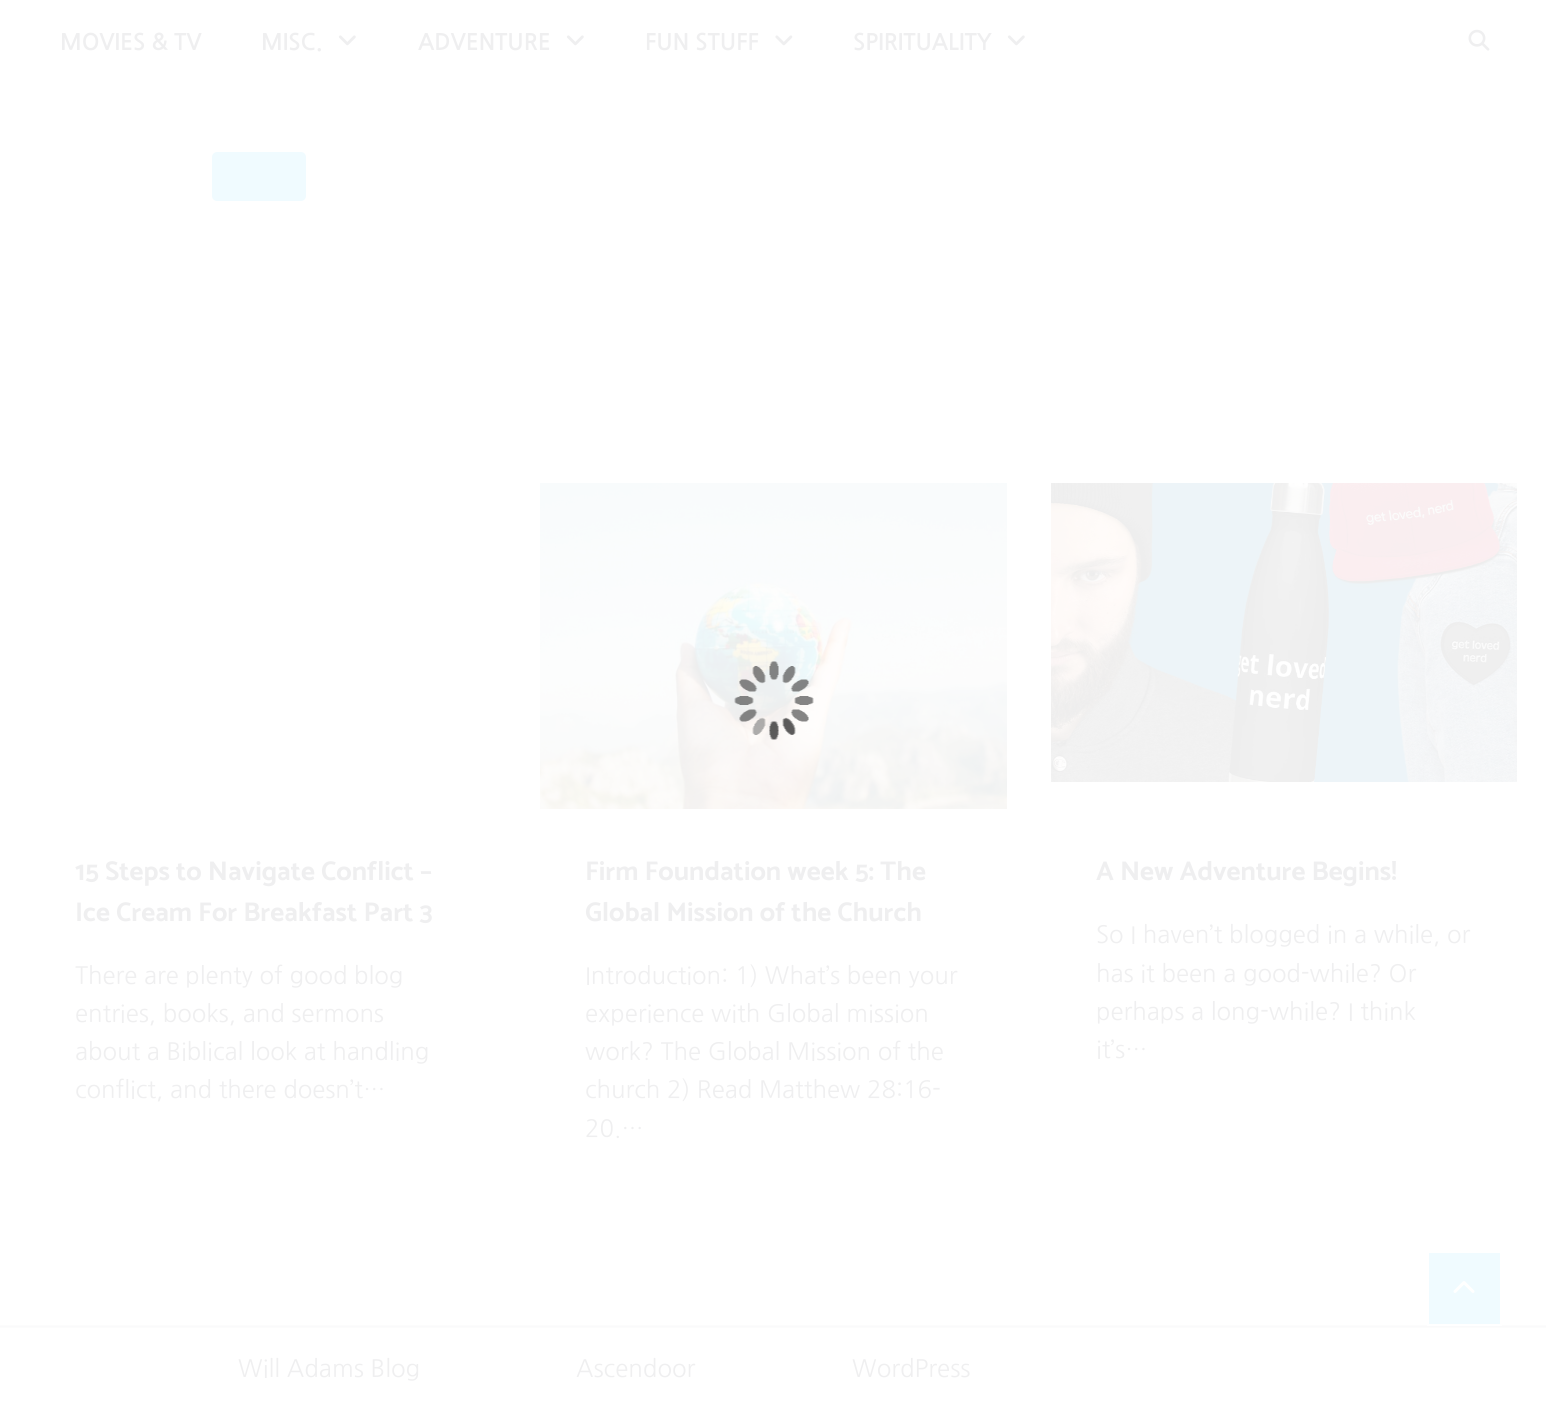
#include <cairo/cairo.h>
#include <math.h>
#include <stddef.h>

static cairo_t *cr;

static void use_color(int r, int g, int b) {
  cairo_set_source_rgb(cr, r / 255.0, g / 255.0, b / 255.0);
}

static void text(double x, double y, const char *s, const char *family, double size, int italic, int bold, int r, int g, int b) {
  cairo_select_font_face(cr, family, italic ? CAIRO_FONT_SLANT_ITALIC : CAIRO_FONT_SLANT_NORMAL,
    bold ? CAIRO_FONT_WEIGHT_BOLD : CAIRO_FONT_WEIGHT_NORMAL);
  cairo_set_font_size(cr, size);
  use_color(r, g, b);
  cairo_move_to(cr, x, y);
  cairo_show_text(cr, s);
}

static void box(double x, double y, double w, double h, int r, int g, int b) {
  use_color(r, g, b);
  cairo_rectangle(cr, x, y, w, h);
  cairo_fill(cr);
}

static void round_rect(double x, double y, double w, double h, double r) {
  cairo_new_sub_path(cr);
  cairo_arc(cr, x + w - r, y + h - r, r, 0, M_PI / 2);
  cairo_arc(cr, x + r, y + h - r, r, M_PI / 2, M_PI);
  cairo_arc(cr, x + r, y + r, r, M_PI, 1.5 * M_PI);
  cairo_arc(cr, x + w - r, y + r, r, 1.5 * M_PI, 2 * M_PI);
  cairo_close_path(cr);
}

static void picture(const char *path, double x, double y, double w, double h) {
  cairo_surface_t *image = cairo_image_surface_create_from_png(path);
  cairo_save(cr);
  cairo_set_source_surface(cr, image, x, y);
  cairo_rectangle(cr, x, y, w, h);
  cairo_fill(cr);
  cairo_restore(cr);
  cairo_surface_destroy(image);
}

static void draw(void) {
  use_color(255, 255, 255);
  cairo_paint(cr);
  picture("img_01.png", 338, 35, 18, 11);
  picture("img_01.png", 566, 35, 18, 11);
  picture("img_02.png", 775, 35, 18, 11);
  picture("img_01.png", 1007, 35, 18, 11);
  picture("img_03.png", 1468, 29, 22, 22);
  picture("img_05.png", 540, 483, 467, 326);
  picture("img_04.png", 734, 661, 80, 79);
  use_color(240, 251, 255);
  round_rect(213, 153, 92, 47, 4);
  cairo_fill_preserve(cr);
  cairo_stroke(cr);
  picture("img_06.png", 1051, 483, 466, 299);
  box(0, 1325, 1546, 1, 252, 252, 252);
  use_color(240, 251, 255);
  cairo_rectangle(cr, 1428, 1252, 73, 73);
  cairo_fill_preserve(cr);
  use_color(255, 255, 255);
  cairo_stroke(cr);
  picture("img_07.png", 1453, 1281, 22, 12);
  box(0, 1327, 1546, 1, 252, 252, 252);
  box(0, 1326, 1546, 1, 250, 250, 251);
  text(60, 50, "MOVIES & TV", "NanumGothic", 22.5, 0, 1, 239, 239, 240);
  text(261, 50, "MISC.", "NanumGothic", 22.5, 0, 1, 239, 239, 240);
  text(418, 50, "ADVENTURE", "NanumGothic", 22.5, 0, 1, 239, 239, 240);
  text(645, 50, "FUN STUFF", "NanumGothic", 22.5, 0, 1, 239, 239, 240);
  text(853, 50, "SPIRITUALITY", "NanumGothic", 22.5, 0, 1, 239, 239, 240);
  text(75, 880, "15 Steps to Navigate Conflict –", "Catamaran", 27.1, 0, 1, 239, 239, 240);
  text(75, 921, "Ice Cream For Breakfast Part 3", "Catamaran", 27.1, 0, 1, 239, 239, 240);
  text(75, 984, "There are plenty of good blog", "NanumGothic", 23.9, 0, 0, 239, 239, 240);
  text(75, 1022, "entries, books, and sermons", "NanumGothic", 23.9, 0, 0, 239, 239, 240);
  text(75, 1060, "about a Biblical look at handling", "NanumGothic", 23.9, 0, 0, 239, 239, 240);
  text(75, 1098, "conflict, and there doesn’t…", "NanumGothic", 23.9, 0, 0, 239, 239, 240);
  text(585, 880, "Firm Foundation week 5: The", "Catamaran", 27.1, 0, 1, 239, 239, 240);
  text(585, 921, "Global Mission of the Church", "Catamaran", 27.1, 0, 1, 239, 239, 240);
  text(585, 984, "Introduction: 1) What’s been your", "NanumGothic", 23.9, 0, 0, 239, 239, 240);
  text(585, 1022, "experience with Global mission", "NanumGothic", 23.9, 0, 0, 239, 239, 240);
  text(585, 1060, "work? The Global Mission of the", "NanumGothic", 23.9, 0, 0, 239, 239, 240);
  text(585, 1098, "church 2) Read Matthew 28:16-", "NanumGothic", 23.9, 0, 0, 239, 239, 240);
  text(585, 1137, "20.…", "NanumGothic", 23.9, 0, 0, 239, 239, 240);
  text(1096, 880, "A New Adventure Begins!", "Catamaran", 27.1, 0, 1, 239, 239, 240);
  text(1096, 943, "So I haven’t blogged in a while, or", "NanumGothic", 23.9, 0, 0, 239, 239, 240);
  text(1096, 982, "has it been a good-while? Or", "NanumGothic", 23.9, 0, 0, 239, 239, 240);
  text(1096, 1020, "perhaps a long-while? I think", "NanumGothic", 23.9, 0, 0, 239, 239, 240);
  text(1096, 1058, "it’s…", "NanumGothic", 23.9, 0, 0, 239, 239, 240);
  text(238, 1377, "Will Adams Blog", "NanumGothic", 24, 0, 0, 239, 239, 240);
  text(576, 1377, "Ascendoor", "NanumGothic", 24, 0, 0, 239, 239, 240);
  text(852, 1377, "WordPress", "NanumGothic", 24, 0, 0, 239, 239, 240);
}

int main(void) {
  cairo_surface_t *surface = cairo_image_surface_create(CAIRO_FORMAT_RGB24, 1546, 1408);
  cr = cairo_create(surface);
  cairo_font_options_t *options = cairo_font_options_create();
  cairo_font_options_set_hint_metrics(options, CAIRO_HINT_METRICS_OFF);
  cairo_font_options_set_hint_style(options, CAIRO_HINT_STYLE_NONE);
  cairo_set_font_options(cr, options);
  cairo_set_miter_limit(cr, 4);
  draw();
  cairo_surface_write_to_png(surface, "out.png");
  cairo_font_options_destroy(options);
  cairo_destroy(cr);
  cairo_surface_destroy(surface);
  return 0;
}
